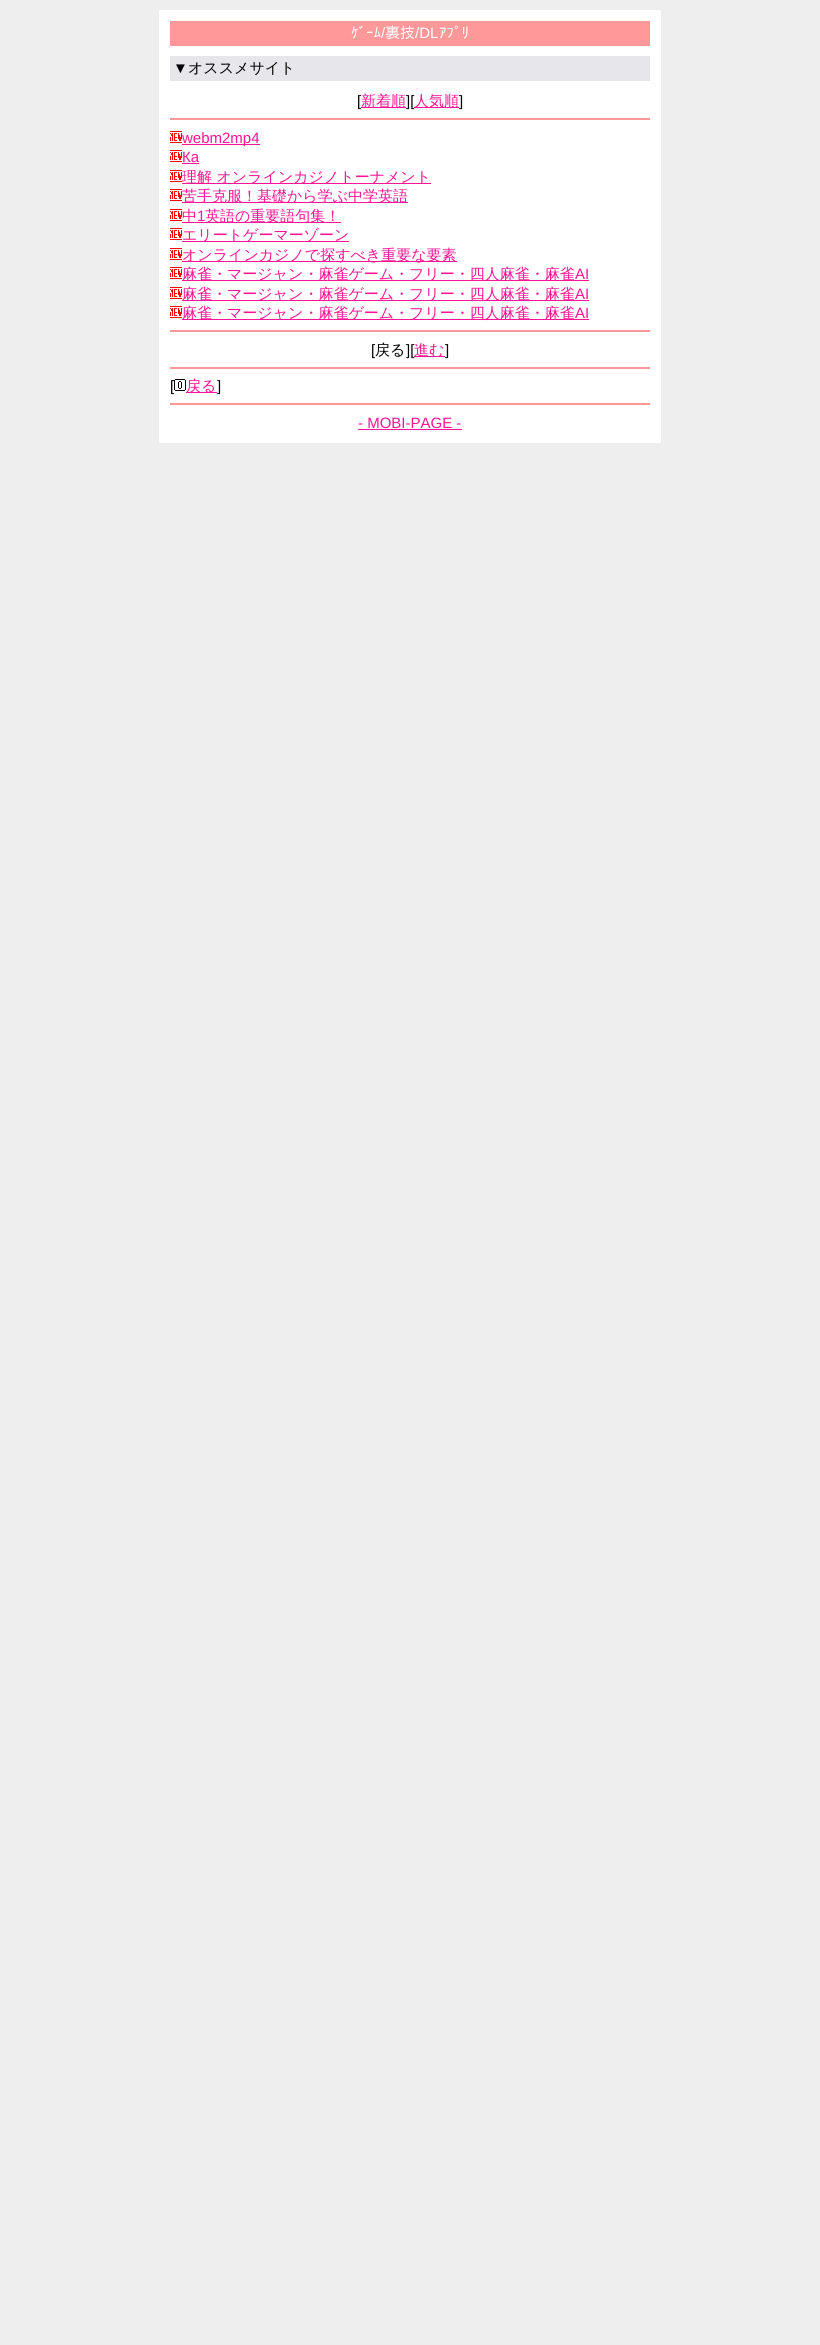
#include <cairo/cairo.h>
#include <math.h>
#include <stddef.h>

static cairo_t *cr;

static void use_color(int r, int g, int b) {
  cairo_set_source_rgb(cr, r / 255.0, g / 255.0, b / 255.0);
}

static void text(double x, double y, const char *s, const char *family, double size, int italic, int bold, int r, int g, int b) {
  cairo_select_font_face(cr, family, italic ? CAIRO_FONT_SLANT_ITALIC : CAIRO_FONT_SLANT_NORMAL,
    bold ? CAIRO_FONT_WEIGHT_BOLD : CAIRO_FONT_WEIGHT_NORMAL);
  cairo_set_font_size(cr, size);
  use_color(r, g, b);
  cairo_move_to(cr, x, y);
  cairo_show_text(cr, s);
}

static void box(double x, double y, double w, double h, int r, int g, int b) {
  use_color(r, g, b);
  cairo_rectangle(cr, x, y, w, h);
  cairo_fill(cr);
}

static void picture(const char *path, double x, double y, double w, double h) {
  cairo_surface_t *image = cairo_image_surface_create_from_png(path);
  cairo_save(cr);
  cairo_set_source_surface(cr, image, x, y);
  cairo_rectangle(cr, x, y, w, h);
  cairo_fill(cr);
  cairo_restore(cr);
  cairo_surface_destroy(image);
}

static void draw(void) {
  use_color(238, 238, 238);
  cairo_paint(cr);
  box(159, 10, 502, 433, 255, 255, 255);
  box(170, 21, 480, 25, 255, 153, 153);
  box(170, 56, 480, 25, 231, 231, 235);
  box(361, 107, 45, 1, 255, 20, 147);
  box(170, 118, 480, 2, 255, 153, 153);
  picture("img_01.png", 170, 131, 12, 12);
  box(182, 144, 78, 1, 255, 20, 147);
  picture("img_01.png", 170, 150, 12, 12);
  box(182, 163, 17, 1, 255, 20, 147);
  picture("img_01.png", 170, 170, 12, 12);
  box(182, 183, 249, 1, 255, 20, 147);
  picture("img_01.png", 170, 189, 12, 12);
  box(182, 202, 226, 1, 255, 20, 147);
  picture("img_01.png", 170, 209, 12, 12);
  box(182, 222, 159, 1, 255, 20, 147);
  picture("img_01.png", 170, 228, 12, 12);
  box(182, 241, 167, 1, 255, 20, 147);
  picture("img_01.png", 170, 248, 12, 12);
  box(182, 261, 275, 1, 255, 20, 147);
  picture("img_01.png", 170, 267, 12, 12);
  box(182, 280, 407, 1, 255, 20, 147);
  picture("img_01.png", 170, 287, 12, 12);
  box(182, 300, 407, 1, 255, 20, 147);
  picture("img_01.png", 170, 306, 12, 12);
  box(182, 319, 407, 1, 255, 20, 147);
  box(170, 330, 480, 2, 255, 153, 153);
  box(170, 367, 480, 2, 255, 153, 153);
  box(186, 392, 31, 1, 255, 20, 147);
  box(170, 403, 480, 2, 255, 153, 153);
  box(358, 429, 104, 1, 255, 20, 147);
  text(351, 38, "ｹﾞｰﾑ", "IPAPGothic", 15, 0, 0, 255, 255, 255);
  text(381, 38, "/", "Liberation Sans", 15, 0, 0, 255, 255, 255);
  text(385, 38, "裏技", "IPAPGothic", 15, 0, 0, 255, 255, 255);
  text(415, 38, "/DL", "Liberation Sans", 15, 0, 0, 255, 255, 255);
  text(439, 38, "ｱﾌﾟﾘ", "IPAPGothic", 15, 0, 0, 255, 255, 255);
  text(173, 73, "▼", "Liberation Sans", 15, 0, 0, 0, 0, 0);
  text(188, 73, "オススメサイト", "WenQuanYi Zen Hei Medium", 15, 0, 0, 0, 0, 0);
  text(357, 106, "[", "Liberation Sans", 15, 0, 0, 0, 0, 0);
  text(361, 106, "新着順", "WenQuanYi Zen Hei Medium", 15, 0, 0, 255, 20, 147);
  text(406, 106, "][", "Liberation Sans", 15, 0, 0, 0, 0, 0);
  box(414, 107, 45, 1, 255, 20, 147);
  text(414, 106, "人気順", "WenQuanYi Zen Hei Medium", 15, 0, 0, 255, 20, 147);
  text(459, 106, "]", "Liberation Sans", 15, 0, 0, 0, 0, 0);
  text(182, 143, "webm2mp4", "Liberation Sans", 15, 0, 0, 255, 20, 147);
  text(182, 162, "Ка", "Liberation Sans", 15, 0, 0, 255, 20, 147);
  text(182, 182, "理解 オンラインカジノトーナメント", "WenQuanYi Zen Hei Medium", 15, 0, 0, 255, 20, 147);
  text(182, 201, "苦手克服！基礎から学ぶ中学英語", "WenQuanYi Zen Hei Medium", 15, 0, 0, 255, 20, 147);
  text(182, 221, "中", "WenQuanYi Zen Hei Medium", 15, 0, 0, 255, 20, 147);
  text(197, 221, "1", "Liberation Sans", 15, 0, 0, 255, 20, 147);
  text(205, 221, "英語の重要語句集！", "WenQuanYi Zen Hei Medium", 15, 0, 0, 255, 20, 147);
  text(182, 240, "エリートゲーマーゾーン", "WenQuanYi Zen Hei Medium", 15, 0, 0, 255, 20, 147);
  text(182, 260, "オンラインカジノで探すべき重要な要素", "WenQuanYi Zen Hei Medium", 15, 0, 0, 255, 20, 147);
  text(182, 279, "麻雀・マージャン・麻雀ゲーム・フリー・四人麻雀・麻雀", "WenQuanYi Zen Hei Medium", 15, 0, 0, 255, 20, 147);
  text(575, 279, "AI", "Liberation Sans", 15, 0, 0, 255, 20, 147);
  text(182, 299, "麻雀・マージャン・麻雀ゲーム・フリー・四人麻雀・麻雀", "WenQuanYi Zen Hei Medium", 15, 0, 0, 255, 20, 147);
  text(575, 299, "AI", "Liberation Sans", 15, 0, 0, 255, 20, 147);
  text(182, 318, "麻雀・マージャン・麻雀ゲーム・フリー・四人麻雀・麻雀", "WenQuanYi Zen Hei Medium", 15, 0, 0, 255, 20, 147);
  text(575, 318, "AI", "Liberation Sans", 15, 0, 0, 255, 20, 147);
  text(371, 355, "[", "Liberation Sans", 15, 0, 0, 0, 0, 0);
  text(375, 355, "戻る", "WenQuanYi Zen Hei Medium", 15, 0, 0, 0, 0, 0);
  text(406, 355, "][", "Liberation Sans", 15, 0, 0, 0, 0, 0);
  box(414, 356, 31, 1, 255, 20, 147);
  text(414, 355, "進む", "WenQuanYi Zen Hei Medium", 15, 0, 0, 255, 20, 147);
  text(445, 355, "]", "Liberation Sans", 15, 0, 0, 0, 0, 0);
  text(170, 391, "[", "Liberation Sans", 15, 0, 0, 0, 0, 0);
  picture("img_02.png", 174, 379, 12, 12);
  text(186, 391, "戻る", "WenQuanYi Zen Hei Medium", 15, 0, 0, 255, 20, 147);
  text(217, 391, "]", "Liberation Sans", 15, 0, 0, 0, 0, 0);
  text(358, 428, "- MOBI-PAGE -", "Liberation Sans", 15, 0, 0, 255, 20, 147);
}

int main(void) {
  cairo_surface_t *surface = cairo_image_surface_create(CAIRO_FORMAT_RGB24, 820, 2345);
  cr = cairo_create(surface);
  cairo_font_options_t *options = cairo_font_options_create();
  cairo_font_options_set_hint_metrics(options, CAIRO_HINT_METRICS_OFF);
  cairo_font_options_set_hint_style(options, CAIRO_HINT_STYLE_NONE);
  cairo_set_font_options(cr, options);
  cairo_set_miter_limit(cr, 4);
  draw();
  cairo_surface_write_to_png(surface, "out.png");
  cairo_font_options_destroy(options);
  cairo_destroy(cr);
  cairo_surface_destroy(surface);
  return 0;
}
